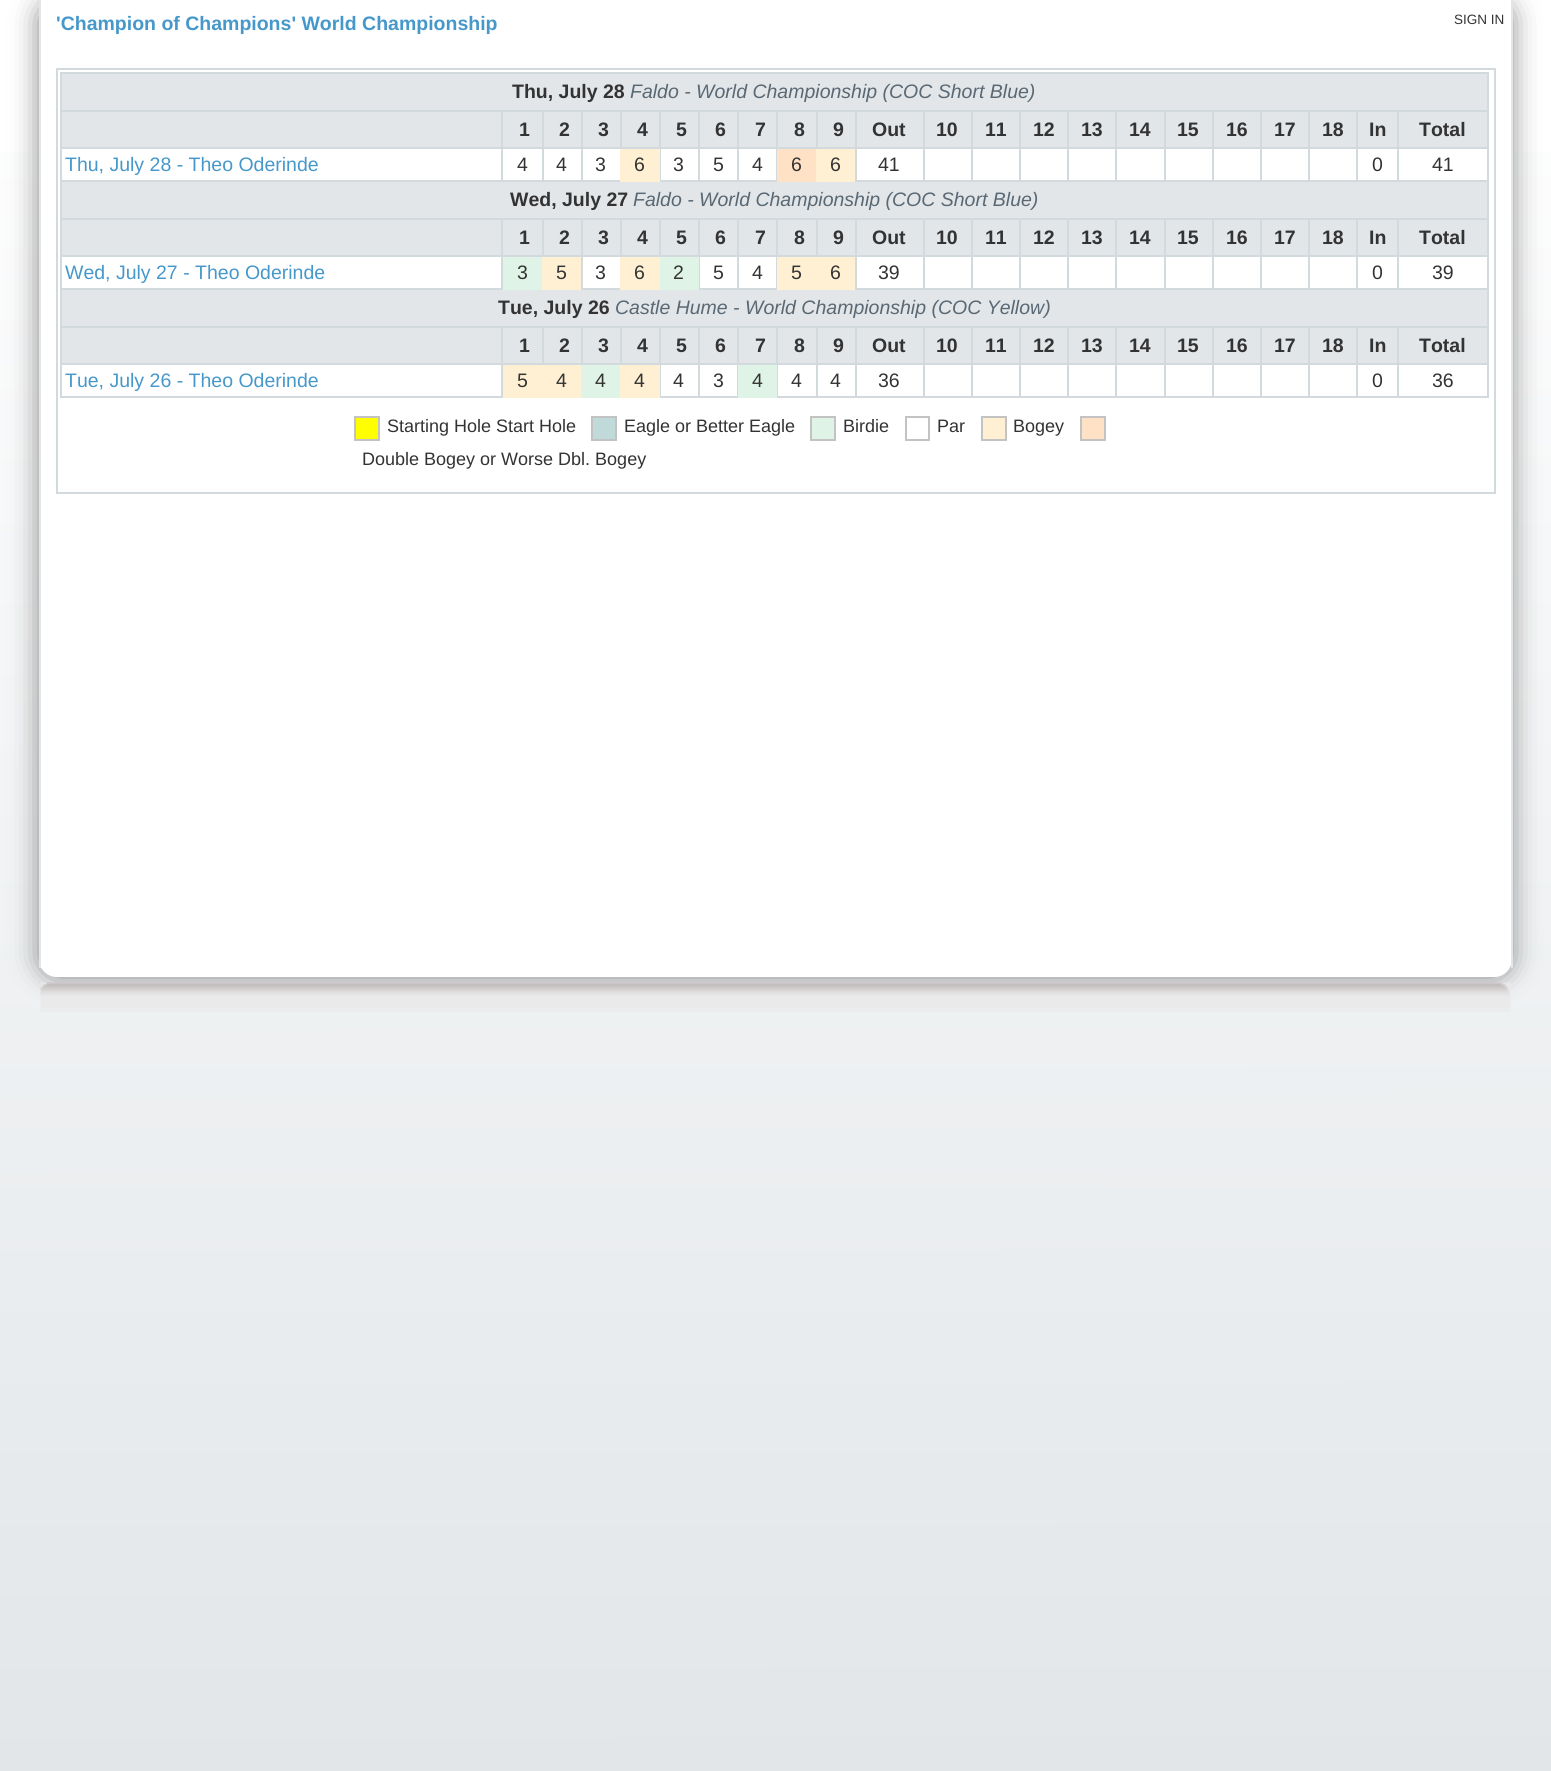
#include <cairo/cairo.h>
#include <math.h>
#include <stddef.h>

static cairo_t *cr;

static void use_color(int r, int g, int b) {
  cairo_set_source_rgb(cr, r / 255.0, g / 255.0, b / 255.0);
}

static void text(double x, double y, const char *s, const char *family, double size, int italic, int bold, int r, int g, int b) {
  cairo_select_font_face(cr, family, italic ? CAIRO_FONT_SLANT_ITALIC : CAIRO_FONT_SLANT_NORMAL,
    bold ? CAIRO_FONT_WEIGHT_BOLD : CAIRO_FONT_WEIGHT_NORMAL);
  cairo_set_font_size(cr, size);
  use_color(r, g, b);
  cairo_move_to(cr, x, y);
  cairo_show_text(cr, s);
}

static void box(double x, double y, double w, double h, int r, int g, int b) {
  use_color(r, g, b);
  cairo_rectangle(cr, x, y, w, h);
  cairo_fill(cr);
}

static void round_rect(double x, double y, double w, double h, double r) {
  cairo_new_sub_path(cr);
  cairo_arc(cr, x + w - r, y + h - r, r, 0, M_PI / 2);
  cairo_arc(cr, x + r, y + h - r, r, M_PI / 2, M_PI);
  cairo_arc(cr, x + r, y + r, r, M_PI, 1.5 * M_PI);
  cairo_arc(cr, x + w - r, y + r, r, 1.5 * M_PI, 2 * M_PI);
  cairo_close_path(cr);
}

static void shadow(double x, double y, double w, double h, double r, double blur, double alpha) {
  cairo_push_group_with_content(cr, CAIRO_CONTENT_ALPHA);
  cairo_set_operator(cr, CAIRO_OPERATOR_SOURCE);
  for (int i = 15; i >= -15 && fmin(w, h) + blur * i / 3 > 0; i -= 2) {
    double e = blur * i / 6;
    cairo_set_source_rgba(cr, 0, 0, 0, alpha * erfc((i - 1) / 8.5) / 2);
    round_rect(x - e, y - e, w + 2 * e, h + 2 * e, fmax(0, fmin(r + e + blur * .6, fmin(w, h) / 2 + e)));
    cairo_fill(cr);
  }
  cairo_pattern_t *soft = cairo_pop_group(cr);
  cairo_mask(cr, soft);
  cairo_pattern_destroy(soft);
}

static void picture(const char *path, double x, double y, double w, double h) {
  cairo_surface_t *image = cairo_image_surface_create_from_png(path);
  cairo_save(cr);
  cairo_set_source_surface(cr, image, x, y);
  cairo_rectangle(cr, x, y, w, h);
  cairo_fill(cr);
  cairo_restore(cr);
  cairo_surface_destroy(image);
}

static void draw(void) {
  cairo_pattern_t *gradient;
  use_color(255, 255, 255);
  cairo_paint(cr);
  gradient = cairo_pattern_create_linear(775, 0, 776, 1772);
  cairo_pattern_add_color_stop_rgba(gradient, 0, 1, 1, 1, 1);
  cairo_pattern_add_color_stop_rgba(gradient, 1, 0.886, 0.902, 0.914, 1);
  cairo_set_source(cr, gradient);
  cairo_pattern_destroy(gradient);
  cairo_rectangle(cr, 0, 152, 1551, 1619);
  cairo_fill(cr);
  use_color(136, 136, 136);
  shadow(39, 0, 1473, 977, 18, 13.5, 1);
  use_color(255, 255, 255);
  cairo_new_path(cr);
  cairo_move_to(cr, 39, 0);
  cairo_line_to(cr, 1512, 0);
  cairo_line_to(cr, 1512, 959);
  cairo_curve_to(cr, 1512, 969, 1504, 977, 1494, 977);
  cairo_line_to(cr, 57, 977);
  cairo_curve_to(cr, 47, 977, 39, 969, 39, 959);
  cairo_close_path(cr);
  cairo_fill(cr);
  box(1511, 0, 2, 968, 226, 230, 233);
  box(39, 0, 2, 968, 226, 230, 233);
  box(56, 68, 1440, 2, 211, 218, 222);
  box(1494, 68, 2, 426, 211, 218, 222);
  box(56, 492, 1440, 2, 211, 218, 222);
  box(56, 68, 2, 426, 211, 218, 222);
  box(62, 74, 1425, 36, 226, 230, 233);
  box(60, 72, 1428, 2, 211, 218, 222);
  box(1397, 110, 91, 2, 211, 218, 222);
  box(1397, 147, 91, 2, 211, 218, 222);
  box(60, 180, 1428, 2, 211, 218, 222);
  box(1397, 218, 91, 2, 211, 218, 222);
  box(1397, 255, 91, 2, 211, 218, 222);
  box(60, 288, 1428, 2, 211, 218, 222);
  box(1397, 326, 91, 2, 211, 218, 222);
  box(1397, 363, 91, 2, 211, 218, 222);
  box(1487, 363, 2, 35, 211, 218, 222);
  box(1487, 326, 2, 39, 211, 218, 222);
  box(1487, 288, 2, 39, 211, 218, 222);
  box(1487, 255, 2, 35, 211, 218, 222);
  box(1487, 218, 2, 39, 211, 218, 222);
  box(1487, 180, 2, 39, 211, 218, 222);
  box(1487, 147, 2, 35, 211, 218, 222);
  box(1487, 110, 2, 39, 211, 218, 222);
  box(1487, 72, 2, 39, 211, 218, 222);
  box(1397, 147, 2, 35, 211, 218, 222);
  box(1356, 147, 42, 2, 211, 218, 222);
  box(1397, 110, 2, 39, 211, 218, 222);
  box(1356, 110, 42, 2, 211, 218, 222);
  box(1356, 147, 2, 35, 211, 218, 222);
  box(1308, 147, 50, 2, 211, 218, 222);
  box(1356, 110, 2, 39, 211, 218, 222);
  box(1308, 110, 50, 2, 211, 218, 222);
  box(1308, 147, 2, 35, 211, 218, 222);
  box(1260, 147, 50, 2, 211, 218, 222);
  box(1308, 110, 2, 39, 211, 218, 222);
  box(1260, 110, 50, 2, 211, 218, 222);
  box(1260, 147, 2, 35, 211, 218, 222);
  box(1212, 147, 50, 2, 211, 218, 222);
  box(1260, 110, 2, 39, 211, 218, 222);
  box(1212, 110, 50, 2, 211, 218, 222);
  box(1212, 147, 2, 35, 211, 218, 222);
  box(1164, 147, 50, 2, 211, 218, 222);
  box(1212, 110, 2, 39, 211, 218, 222);
  box(1164, 110, 50, 2, 211, 218, 222);
  box(1164, 147, 2, 35, 211, 218, 222);
  box(1115, 147, 51, 2, 211, 218, 222);
  box(1164, 110, 2, 39, 211, 218, 222);
  box(1115, 110, 51, 2, 211, 218, 222);
  box(1115, 147, 2, 35, 211, 218, 222);
  box(1067, 147, 49, 2, 211, 218, 222);
  box(1115, 110, 2, 39, 211, 218, 222);
  box(1067, 110, 49, 2, 211, 218, 222);
  box(1067, 147, 2, 35, 211, 218, 222);
  box(1019, 147, 49, 2, 211, 218, 222);
  box(1067, 110, 2, 39, 211, 218, 222);
  box(1019, 110, 49, 2, 211, 218, 222);
  box(1019, 147, 2, 35, 211, 218, 222);
  box(971, 147, 49, 2, 211, 218, 222);
  box(1019, 110, 2, 39, 211, 218, 222);
  box(971, 110, 49, 2, 211, 218, 222);
  box(971, 147, 2, 35, 211, 218, 222);
  box(923, 147, 49, 2, 211, 218, 222);
  box(971, 110, 2, 39, 211, 218, 222);
  box(923, 110, 49, 2, 211, 218, 222);
  box(923, 147, 2, 35, 211, 218, 222);
  box(855, 147, 69, 2, 211, 218, 222);
  box(923, 110, 2, 39, 211, 218, 222);
  box(855, 110, 69, 2, 211, 218, 222);
  box(855, 147, 2, 35, 211, 218, 222);
  box(776, 147, 81, 2, 211, 218, 222);
  box(855, 110, 2, 39, 211, 218, 222);
  box(816, 110, 41, 2, 211, 218, 222);
  box(816, 110, 2, 39, 211, 218, 222);
  box(776, 110, 42, 2, 211, 218, 222);
  box(776, 147, 1, 35, 211, 218, 222);
  box(737, 147, 40, 2, 211, 218, 222);
  box(776, 110, 2, 39, 211, 218, 222);
  box(737, 110, 40, 2, 211, 218, 222);
  box(737, 147, 2, 35, 211, 218, 222);
  box(698, 147, 40, 2, 211, 218, 222);
  box(737, 110, 2, 39, 211, 218, 222);
  box(698, 110, 40, 2, 211, 218, 222);
  box(698, 147, 2, 35, 211, 218, 222);
  box(581, 147, 118, 2, 211, 218, 222);
  box(698, 110, 2, 39, 211, 218, 222);
  box(659, 110, 40, 2, 211, 218, 222);
  box(660, 147, 1, 35, 211, 218, 222);
  box(659, 110, 2, 39, 211, 218, 222);
  box(620, 110, 40, 2, 211, 218, 222);
  box(620, 110, 2, 39, 211, 218, 222);
  box(581, 110, 40, 2, 211, 218, 222);
  box(581, 147, 2, 35, 211, 218, 222);
  box(542, 147, 40, 2, 211, 218, 222);
  box(581, 110, 2, 39, 211, 218, 222);
  box(542, 110, 40, 2, 211, 218, 222);
  box(542, 147, 2, 35, 211, 218, 222);
  box(501, 147, 42, 2, 211, 218, 222);
  box(542, 110, 2, 39, 211, 218, 222);
  box(501, 110, 42, 2, 211, 218, 222);
  box(501, 147, 2, 35, 211, 218, 222);
  box(60, 147, 443, 2, 211, 218, 222);
  box(501, 110, 2, 39, 211, 218, 222);
  box(60, 110, 443, 2, 211, 218, 222);
  box(1397, 255, 2, 35, 211, 218, 222);
  box(1356, 255, 42, 2, 211, 218, 222);
  box(1397, 218, 2, 39, 211, 218, 222);
  box(1356, 218, 42, 2, 211, 218, 222);
  box(1356, 255, 2, 35, 211, 218, 222);
  box(1308, 255, 50, 2, 211, 218, 222);
  box(1356, 218, 2, 39, 211, 218, 222);
  box(1308, 218, 50, 2, 211, 218, 222);
  box(1308, 255, 2, 35, 211, 218, 222);
  box(1260, 255, 50, 2, 211, 218, 222);
  box(1308, 218, 2, 39, 211, 218, 222);
  box(1260, 218, 50, 2, 211, 218, 222);
  box(1260, 255, 2, 35, 211, 218, 222);
  box(1212, 255, 50, 2, 211, 218, 222);
  box(1260, 218, 2, 39, 211, 218, 222);
  box(1212, 218, 50, 2, 211, 218, 222);
  box(1212, 255, 2, 35, 211, 218, 222);
  box(1164, 255, 50, 2, 211, 218, 222);
  box(1212, 218, 2, 39, 211, 218, 222);
  box(1164, 218, 50, 2, 211, 218, 222);
  box(1164, 255, 2, 35, 211, 218, 222);
  box(1115, 255, 51, 2, 211, 218, 222);
  box(1164, 218, 2, 39, 211, 218, 222);
  box(1115, 218, 51, 2, 211, 218, 222);
  box(1115, 255, 2, 35, 211, 218, 222);
  box(1067, 255, 49, 2, 211, 218, 222);
  box(1115, 218, 2, 39, 211, 218, 222);
  box(1067, 218, 49, 2, 211, 218, 222);
  box(1067, 255, 2, 35, 211, 218, 222);
  box(1019, 255, 49, 2, 211, 218, 222);
  box(1067, 218, 2, 39, 211, 218, 222);
  box(1019, 218, 49, 2, 211, 218, 222);
  box(1019, 255, 2, 35, 211, 218, 222);
  box(971, 255, 49, 2, 211, 218, 222);
  box(1019, 218, 2, 39, 211, 218, 222);
  box(971, 218, 49, 2, 211, 218, 222);
  box(971, 255, 2, 35, 211, 218, 222);
  box(923, 255, 49, 2, 211, 218, 222);
  box(971, 218, 2, 39, 211, 218, 222);
  box(923, 218, 49, 2, 211, 218, 222);
  box(923, 255, 2, 35, 211, 218, 222);
  box(855, 255, 69, 2, 211, 218, 222);
  box(923, 218, 2, 39, 211, 218, 222);
  box(855, 218, 69, 2, 211, 218, 222);
  box(855, 255, 2, 35, 211, 218, 222);
  box(776, 255, 81, 2, 211, 218, 222);
  box(855, 218, 2, 39, 211, 218, 222);
  box(816, 218, 41, 2, 211, 218, 222);
  box(816, 218, 2, 39, 211, 218, 222);
  box(776, 218, 42, 2, 211, 218, 222);
  box(776, 255, 1, 35, 211, 218, 222);
  box(737, 255, 40, 2, 211, 218, 222);
  box(776, 218, 2, 39, 211, 218, 222);
  box(737, 218, 40, 2, 211, 218, 222);
  box(737, 255, 2, 35, 211, 218, 222);
  box(581, 255, 157, 2, 211, 218, 222);
  box(737, 218, 2, 39, 211, 218, 222);
  box(698, 218, 40, 2, 211, 218, 222);
  box(699, 255, 1, 35, 211, 218, 222);
  box(698, 218, 2, 39, 211, 218, 222);
  box(659, 218, 40, 2, 211, 218, 222);
  box(659, 218, 2, 39, 211, 218, 222);
  box(620, 218, 40, 2, 211, 218, 222);
  box(620, 218, 2, 39, 211, 218, 222);
  box(581, 218, 40, 2, 211, 218, 222);
  box(581, 255, 2, 35, 211, 218, 222);
  box(501, 255, 81, 2, 211, 218, 222);
  box(581, 218, 2, 39, 211, 218, 222);
  box(542, 218, 40, 2, 211, 218, 222);
  box(542, 218, 2, 39, 211, 218, 222);
  box(501, 218, 42, 2, 211, 218, 222);
  box(501, 255, 2, 35, 211, 218, 222);
  box(60, 255, 443, 2, 211, 218, 222);
  box(501, 218, 2, 39, 211, 218, 222);
  box(60, 218, 443, 2, 211, 218, 222);
  box(1397, 396, 91, 2, 211, 218, 222);
  box(1397, 363, 2, 35, 211, 218, 222);
  box(1356, 363, 42, 2, 211, 218, 222);
  box(1397, 326, 2, 39, 211, 218, 222);
  box(1356, 326, 42, 2, 211, 218, 222);
  box(1356, 396, 42, 2, 211, 218, 222);
  box(1356, 363, 2, 35, 211, 218, 222);
  box(1308, 363, 50, 2, 211, 218, 222);
  box(1356, 326, 2, 39, 211, 218, 222);
  box(1308, 326, 50, 2, 211, 218, 222);
  box(1308, 396, 50, 2, 211, 218, 222);
  box(1308, 363, 2, 35, 211, 218, 222);
  box(1260, 363, 50, 2, 211, 218, 222);
  box(1308, 326, 2, 39, 211, 218, 222);
  box(1260, 326, 50, 2, 211, 218, 222);
  box(1260, 396, 50, 2, 211, 218, 222);
  box(1260, 363, 2, 35, 211, 218, 222);
  box(1212, 363, 50, 2, 211, 218, 222);
  box(1260, 326, 2, 39, 211, 218, 222);
  box(1212, 326, 50, 2, 211, 218, 222);
  box(1212, 396, 50, 2, 211, 218, 222);
  box(1212, 363, 2, 35, 211, 218, 222);
  box(1164, 363, 50, 2, 211, 218, 222);
  box(1212, 326, 2, 39, 211, 218, 222);
  box(1164, 326, 50, 2, 211, 218, 222);
  box(1164, 396, 50, 2, 211, 218, 222);
  box(1164, 363, 2, 35, 211, 218, 222);
  box(1115, 363, 51, 2, 211, 218, 222);
  box(1164, 326, 2, 39, 211, 218, 222);
  box(1115, 326, 51, 2, 211, 218, 222);
  box(1115, 396, 51, 2, 211, 218, 222);
  box(1115, 363, 2, 35, 211, 218, 222);
  box(1067, 363, 49, 2, 211, 218, 222);
  box(1115, 326, 2, 39, 211, 218, 222);
  box(1067, 326, 49, 2, 211, 218, 222);
  box(1067, 396, 49, 2, 211, 218, 222);
  box(1067, 363, 2, 35, 211, 218, 222);
  box(1019, 363, 49, 2, 211, 218, 222);
  box(1067, 326, 2, 39, 211, 218, 222);
  box(1019, 326, 49, 2, 211, 218, 222);
  box(1019, 396, 49, 2, 211, 218, 222);
  box(1019, 363, 2, 35, 211, 218, 222);
  box(971, 363, 49, 2, 211, 218, 222);
  box(1019, 326, 2, 39, 211, 218, 222);
  box(971, 326, 49, 2, 211, 218, 222);
  box(971, 396, 49, 2, 211, 218, 222);
  box(971, 363, 2, 35, 211, 218, 222);
  box(923, 363, 49, 2, 211, 218, 222);
  box(971, 326, 2, 39, 211, 218, 222);
  box(923, 326, 49, 2, 211, 218, 222);
  box(923, 396, 49, 2, 211, 218, 222);
  box(923, 363, 2, 35, 211, 218, 222);
  box(855, 363, 69, 2, 211, 218, 222);
  box(923, 326, 2, 39, 211, 218, 222);
  box(855, 326, 69, 2, 211, 218, 222);
  box(855, 396, 69, 2, 211, 218, 222);
  box(855, 363, 2, 35, 211, 218, 222);
  box(816, 363, 41, 2, 211, 218, 222);
  box(855, 326, 2, 39, 211, 218, 222);
  box(816, 326, 41, 2, 211, 218, 222);
  box(816, 396, 41, 2, 211, 218, 222);
  box(816, 363, 2, 35, 211, 218, 222);
  box(737, 363, 81, 2, 211, 218, 222);
  box(816, 326, 2, 39, 211, 218, 222);
  box(776, 326, 42, 2, 211, 218, 222);
  box(776, 396, 42, 2, 211, 218, 222);
  box(777, 363, 1, 35, 211, 218, 222);
  box(776, 326, 2, 39, 211, 218, 222);
  box(737, 326, 40, 2, 211, 218, 222);
  box(737, 363, 1, 35, 211, 218, 222);
  box(698, 363, 40, 2, 211, 218, 222);
  box(737, 326, 2, 39, 211, 218, 222);
  box(698, 326, 40, 2, 211, 218, 222);
  box(698, 396, 40, 2, 211, 218, 222);
  box(698, 363, 2, 35, 211, 218, 222);
  box(501, 363, 198, 2, 211, 218, 222);
  box(698, 326, 2, 39, 211, 218, 222);
  box(659, 326, 40, 2, 211, 218, 222);
  box(659, 396, 40, 2, 211, 218, 222);
  box(660, 363, 1, 35, 211, 218, 222);
  box(659, 326, 2, 39, 211, 218, 222);
  box(620, 326, 40, 2, 211, 218, 222);
  box(620, 326, 2, 39, 211, 218, 222);
  box(581, 326, 40, 2, 211, 218, 222);
  box(581, 326, 2, 39, 211, 218, 222);
  box(542, 326, 40, 2, 211, 218, 222);
  box(542, 326, 2, 39, 211, 218, 222);
  box(501, 326, 42, 2, 211, 218, 222);
  box(501, 363, 2, 35, 211, 218, 222);
  box(60, 363, 443, 2, 211, 218, 222);
  box(501, 326, 2, 39, 211, 218, 222);
  box(60, 326, 443, 2, 211, 218, 222);
  box(60, 396, 443, 2, 211, 218, 222);
  box(60, 363, 2, 35, 211, 218, 222);
  box(60, 326, 2, 39, 211, 218, 222);
  box(60, 288, 2, 39, 211, 218, 222);
  box(60, 255, 2, 35, 211, 218, 222);
  box(60, 218, 2, 39, 211, 218, 222);
  box(60, 180, 2, 39, 211, 218, 222);
  box(60, 147, 2, 35, 211, 218, 222);
  box(60, 110, 2, 39, 211, 218, 222);
  box(60, 72, 2, 39, 211, 218, 222);
  box(62, 112, 439, 35, 226, 230, 233);
  box(503, 112, 39, 35, 226, 230, 233);
  box(544, 112, 37, 35, 226, 230, 233);
  box(583, 112, 37, 35, 226, 230, 233);
  box(622, 112, 37, 35, 226, 230, 233);
  box(661, 112, 37, 35, 226, 230, 233);
  box(700, 112, 37, 35, 226, 230, 233);
  box(739, 112, 37, 35, 226, 230, 233);
  box(778, 112, 38, 35, 226, 230, 233);
  box(818, 112, 37, 35, 226, 230, 233);
  box(857, 112, 66, 35, 226, 230, 233);
  box(925, 112, 46, 35, 226, 230, 233);
  box(973, 112, 46, 35, 226, 230, 233);
  box(1021, 112, 46, 35, 226, 230, 233);
  box(1069, 112, 46, 35, 226, 230, 233);
  box(1117, 112, 47, 35, 226, 230, 233);
  box(1166, 112, 46, 35, 226, 230, 233);
  box(1214, 112, 46, 35, 226, 230, 233);
  box(1262, 112, 46, 35, 226, 230, 233);
  box(1310, 112, 46, 35, 226, 230, 233);
  box(1358, 112, 39, 35, 226, 230, 233);
  box(1399, 112, 88, 35, 226, 230, 233);
  box(620, 149, 40, 33, 255, 240, 211);
  box(777, 149, 39, 33, 255, 225, 198);
  box(816, 149, 39, 33, 255, 240, 211);
  box(62, 182, 1425, 36, 226, 230, 233);
  box(62, 220, 439, 35, 226, 230, 233);
  box(503, 220, 39, 35, 226, 230, 233);
  box(544, 220, 37, 35, 226, 230, 233);
  box(583, 220, 37, 35, 226, 230, 233);
  box(622, 220, 37, 35, 226, 230, 233);
  box(661, 220, 37, 35, 226, 230, 233);
  box(700, 220, 37, 35, 226, 230, 233);
  box(739, 220, 37, 35, 226, 230, 233);
  box(778, 220, 38, 35, 226, 230, 233);
  box(818, 220, 37, 35, 226, 230, 233);
  box(857, 220, 66, 35, 226, 230, 233);
  box(925, 220, 46, 35, 226, 230, 233);
  box(973, 220, 46, 35, 226, 230, 233);
  box(1021, 220, 46, 35, 226, 230, 233);
  box(1069, 220, 46, 35, 226, 230, 233);
  box(1117, 220, 47, 35, 226, 230, 233);
  box(1166, 220, 46, 35, 226, 230, 233);
  box(1214, 220, 46, 35, 226, 230, 233);
  box(1262, 220, 46, 35, 226, 230, 233);
  box(1310, 220, 46, 35, 226, 230, 233);
  box(1358, 220, 39, 35, 226, 230, 233);
  box(1399, 220, 88, 35, 226, 230, 233);
  box(503, 257, 39, 33, 223, 244, 230);
  box(542, 257, 39, 33, 255, 240, 211);
  box(620, 257, 40, 33, 255, 240, 211);
  box(660, 257, 39, 33, 223, 244, 230);
  box(777, 257, 78, 33, 255, 240, 211);
  box(62, 290, 1425, 36, 226, 230, 233);
  box(62, 328, 439, 35, 226, 230, 233);
  box(503, 328, 39, 35, 226, 230, 233);
  box(544, 328, 37, 35, 226, 230, 233);
  box(583, 328, 37, 35, 226, 230, 233);
  box(622, 328, 37, 35, 226, 230, 233);
  box(661, 328, 37, 35, 226, 230, 233);
  box(700, 328, 37, 35, 226, 230, 233);
  box(739, 328, 37, 35, 226, 230, 233);
  box(778, 328, 38, 35, 226, 230, 233);
  box(818, 328, 37, 35, 226, 230, 233);
  box(857, 328, 66, 35, 226, 230, 233);
  box(925, 328, 46, 35, 226, 230, 233);
  box(973, 328, 46, 35, 226, 230, 233);
  box(1021, 328, 46, 35, 226, 230, 233);
  box(1069, 328, 46, 35, 226, 230, 233);
  box(1117, 328, 47, 35, 226, 230, 233);
  box(1166, 328, 46, 35, 226, 230, 233);
  box(1214, 328, 46, 35, 226, 230, 233);
  box(1262, 328, 46, 35, 226, 230, 233);
  box(1310, 328, 46, 35, 226, 230, 233);
  box(1358, 328, 39, 35, 226, 230, 233);
  box(1399, 328, 88, 35, 226, 230, 233);
  box(503, 365, 78, 33, 255, 240, 211);
  box(581, 365, 39, 33, 223, 244, 230);
  box(620, 365, 40, 33, 255, 240, 211);
  box(738, 365, 39, 33, 223, 244, 230);
  use_color(255, 255, 0);
  cairo_rectangle(cr, 355, 417, 24, 23);
  cairo_fill_preserve(cr);
  use_color(195, 195, 195);
  cairo_stroke(cr);
  use_color(192, 218, 218);
  cairo_rectangle(cr, 592, 417, 24, 23);
  cairo_fill_preserve(cr);
  use_color(195, 195, 195);
  cairo_stroke(cr);
  use_color(223, 244, 230);
  cairo_rectangle(cr, 811, 417, 24, 23);
  cairo_fill_preserve(cr);
  use_color(195, 195, 195);
  cairo_stroke(cr);
  cairo_rectangle(cr, 906, 417, 23, 23);
  cairo_stroke(cr);
  use_color(255, 240, 211);
  cairo_rectangle(cr, 982, 417, 24, 23);
  cairo_fill_preserve(cr);
  use_color(195, 195, 195);
  cairo_stroke(cr);
  use_color(255, 225, 198);
  cairo_rectangle(cr, 1081, 417, 24, 23);
  cairo_fill_preserve(cr);
  use_color(195, 195, 195);
  cairo_stroke(cr);
  use_color(255, 255, 255);
  cairo_new_path(cr);
  cairo_move_to(cr, 41, 950);
  cairo_line_to(cr, 1511, 950);
  cairo_line_to(cr, 1511, 959);
  cairo_curve_to(cr, 1511, 969, 1503, 977, 1493, 977);
  cairo_line_to(cr, 59, 977);
  cairo_curve_to(cr, 49, 977, 41, 969, 41, 959);
  cairo_close_path(cr);
  cairo_fill(cr);
  picture("img_01.png", 40, 982, 1471, 30);
  text(56, 30, "'Champion of Champions' World Championship", "Liberation Sans", 19.5, 0, 1, 70, 152, 203);
  text(1454, 24, "SIGN IN", "Liberation Sans", 13.5, 0, 0, 51, 51, 51);
  text(512, 98, "Thu, July 28", "Liberation Sans", 19.5, 0, 1, 51, 51, 51);
  text(630, 98, "Faldo - World Championship (COC Short Blue)", "Liberation Sans", 19.5, 1, 0, 89, 104, 115);
  text(519, 136, "1", "Liberation Sans", 19.5, 0, 1, 51, 51, 51);
  text(559, 136, "2", "Liberation Sans", 19.5, 0, 1, 51, 51, 51);
  text(598, 136, "3", "Liberation Sans", 19.5, 0, 1, 51, 51, 51);
  text(637, 136, "4", "Liberation Sans", 19.5, 0, 1, 51, 51, 51);
  text(676, 136, "5", "Liberation Sans", 19.5, 0, 1, 51, 51, 51);
  text(715, 136, "6", "Liberation Sans", 19.5, 0, 1, 51, 51, 51);
  text(755, 136, "7", "Liberation Sans", 19.5, 0, 1, 51, 51, 51);
  text(794, 136, "8", "Liberation Sans", 19.5, 0, 1, 51, 51, 51);
  text(833, 136, "9", "Liberation Sans", 19.5, 0, 1, 51, 51, 51);
  text(872, 136, "Out", "Liberation Sans", 19.5, 0, 1, 51, 51, 51);
  text(936, 136, "10", "Liberation Sans", 19.5, 0, 1, 51, 51, 51);
  text(985, 136, "11", "Liberation Sans", 19.5, 0, 1, 51, 51, 51);
  text(1033, 136, "12", "Liberation Sans", 19.5, 0, 1, 51, 51, 51);
  text(1081, 136, "13", "Liberation Sans", 19.5, 0, 1, 51, 51, 51);
  text(1129, 136, "14", "Liberation Sans", 19.5, 0, 1, 51, 51, 51);
  text(1177, 136, "15", "Liberation Sans", 19.5, 0, 1, 51, 51, 51);
  text(1226, 136, "16", "Liberation Sans", 19.5, 0, 1, 51, 51, 51);
  text(1274, 136, "17", "Liberation Sans", 19.5, 0, 1, 51, 51, 51);
  text(1322, 136, "18", "Liberation Sans", 19.5, 0, 1, 51, 51, 51);
  text(1369, 136, "In", "Liberation Sans", 19.5, 0, 1, 51, 51, 51);
  text(1419, 136, "Total", "Liberation Sans", 19.5, 0, 1, 51, 51, 51);
  text(65, 171, "Thu, July 28 - Theo Oderinde", "Liberation Sans", 19.5, 0, 0, 70, 152, 203);
  text(517, 171, "4", "Liberation Sans", 19.5, 0, 0, 51, 51, 51);
  text(556, 171, "4", "Liberation Sans", 19.5, 0, 0, 51, 51, 51);
  text(595, 171, "3", "Liberation Sans", 19.5, 0, 0, 51, 51, 51);
  text(634, 171, "6", "Liberation Sans", 19.5, 0, 0, 51, 51, 51);
  text(673, 171, "3", "Liberation Sans", 19.5, 0, 0, 51, 51, 51);
  text(713, 171, "5", "Liberation Sans", 19.5, 0, 0, 51, 51, 51);
  text(752, 171, "4", "Liberation Sans", 19.5, 0, 0, 51, 51, 51);
  text(791, 171, "6", "Liberation Sans", 19.5, 0, 0, 51, 51, 51);
  text(830, 171, "6", "Liberation Sans", 19.5, 0, 0, 51, 51, 51);
  text(878, 171, "41", "Liberation Sans", 19.5, 0, 0, 51, 51, 51);
  text(1372, 171, "0", "Liberation Sans", 19.5, 0, 0, 51, 51, 51);
  text(1432, 171, "41", "Liberation Sans", 19.5, 0, 0, 51, 51, 51);
  text(510, 206, "Wed, July 27", "Liberation Sans", 19.5, 0, 1, 51, 51, 51);
  text(633, 206, "Faldo - World Championship (COC Short Blue)", "Liberation Sans", 19.5, 1, 0, 89, 104, 115);
  text(519, 244, "1", "Liberation Sans", 19.5, 0, 1, 51, 51, 51);
  text(559, 244, "2", "Liberation Sans", 19.5, 0, 1, 51, 51, 51);
  text(598, 244, "3", "Liberation Sans", 19.5, 0, 1, 51, 51, 51);
  text(637, 244, "4", "Liberation Sans", 19.5, 0, 1, 51, 51, 51);
  text(676, 244, "5", "Liberation Sans", 19.5, 0, 1, 51, 51, 51);
  text(715, 244, "6", "Liberation Sans", 19.5, 0, 1, 51, 51, 51);
  text(755, 244, "7", "Liberation Sans", 19.5, 0, 1, 51, 51, 51);
  text(794, 244, "8", "Liberation Sans", 19.5, 0, 1, 51, 51, 51);
  text(833, 244, "9", "Liberation Sans", 19.5, 0, 1, 51, 51, 51);
  text(872, 244, "Out", "Liberation Sans", 19.5, 0, 1, 51, 51, 51);
  text(936, 244, "10", "Liberation Sans", 19.5, 0, 1, 51, 51, 51);
  text(985, 244, "11", "Liberation Sans", 19.5, 0, 1, 51, 51, 51);
  text(1033, 244, "12", "Liberation Sans", 19.5, 0, 1, 51, 51, 51);
  text(1081, 244, "13", "Liberation Sans", 19.5, 0, 1, 51, 51, 51);
  text(1129, 244, "14", "Liberation Sans", 19.5, 0, 1, 51, 51, 51);
  text(1177, 244, "15", "Liberation Sans", 19.5, 0, 1, 51, 51, 51);
  text(1226, 244, "16", "Liberation Sans", 19.5, 0, 1, 51, 51, 51);
  text(1274, 244, "17", "Liberation Sans", 19.5, 0, 1, 51, 51, 51);
  text(1322, 244, "18", "Liberation Sans", 19.5, 0, 1, 51, 51, 51);
  text(1369, 244, "In", "Liberation Sans", 19.5, 0, 1, 51, 51, 51);
  text(1419, 244, "Total", "Liberation Sans", 19.5, 0, 1, 51, 51, 51);
  text(65, 279, "Wed, July 27 - Theo Oderinde", "Liberation Sans", 19.5, 0, 0, 70, 152, 203);
  text(517, 279, "3", "Liberation Sans", 19.5, 0, 0, 51, 51, 51);
  text(556, 279, "5", "Liberation Sans", 19.5, 0, 0, 51, 51, 51);
  text(595, 279, "3", "Liberation Sans", 19.5, 0, 0, 51, 51, 51);
  text(634, 279, "6", "Liberation Sans", 19.5, 0, 0, 51, 51, 51);
  text(673, 279, "2", "Liberation Sans", 19.5, 0, 0, 51, 51, 51);
  text(713, 279, "5", "Liberation Sans", 19.5, 0, 0, 51, 51, 51);
  text(752, 279, "4", "Liberation Sans", 19.5, 0, 0, 51, 51, 51);
  text(791, 279, "5", "Liberation Sans", 19.5, 0, 0, 51, 51, 51);
  text(830, 279, "6", "Liberation Sans", 19.5, 0, 0, 51, 51, 51);
  text(878, 279, "39", "Liberation Sans", 19.5, 0, 0, 51, 51, 51);
  text(1372, 279, "0", "Liberation Sans", 19.5, 0, 0, 51, 51, 51);
  text(1432, 279, "39", "Liberation Sans", 19.5, 0, 0, 51, 51, 51);
  text(498, 314, "Tue, July 26", "Liberation Sans", 19.5, 0, 1, 51, 51, 51);
  text(615, 314, "Castle Hume - World Championship (COC Yellow)", "Liberation Sans", 19.5, 1, 0, 89, 104, 115);
  text(519, 352, "1", "Liberation Sans", 19.5, 0, 1, 51, 51, 51);
  text(559, 352, "2", "Liberation Sans", 19.5, 0, 1, 51, 51, 51);
  text(598, 352, "3", "Liberation Sans", 19.5, 0, 1, 51, 51, 51);
  text(637, 352, "4", "Liberation Sans", 19.5, 0, 1, 51, 51, 51);
  text(676, 352, "5", "Liberation Sans", 19.5, 0, 1, 51, 51, 51);
  text(715, 352, "6", "Liberation Sans", 19.5, 0, 1, 51, 51, 51);
  text(755, 352, "7", "Liberation Sans", 19.5, 0, 1, 51, 51, 51);
  text(794, 352, "8", "Liberation Sans", 19.5, 0, 1, 51, 51, 51);
  text(833, 352, "9", "Liberation Sans", 19.5, 0, 1, 51, 51, 51);
  text(872, 352, "Out", "Liberation Sans", 19.5, 0, 1, 51, 51, 51);
  text(936, 352, "10", "Liberation Sans", 19.5, 0, 1, 51, 51, 51);
  text(985, 352, "11", "Liberation Sans", 19.5, 0, 1, 51, 51, 51);
  text(1033, 352, "12", "Liberation Sans", 19.5, 0, 1, 51, 51, 51);
  text(1081, 352, "13", "Liberation Sans", 19.5, 0, 1, 51, 51, 51);
  text(1129, 352, "14", "Liberation Sans", 19.5, 0, 1, 51, 51, 51);
  text(1177, 352, "15", "Liberation Sans", 19.5, 0, 1, 51, 51, 51);
  text(1226, 352, "16", "Liberation Sans", 19.5, 0, 1, 51, 51, 51);
  text(1274, 352, "17", "Liberation Sans", 19.5, 0, 1, 51, 51, 51);
  text(1322, 352, "18", "Liberation Sans", 19.5, 0, 1, 51, 51, 51);
  text(1369, 352, "In", "Liberation Sans", 19.5, 0, 1, 51, 51, 51);
  text(1419, 352, "Total", "Liberation Sans", 19.5, 0, 1, 51, 51, 51);
  text(65, 387, "Tue, July 26 - Theo Oderinde", "Liberation Sans", 19.5, 0, 0, 70, 152, 203);
  text(517, 387, "5", "Liberation Sans", 19.5, 0, 0, 51, 51, 51);
  text(556, 387, "4", "Liberation Sans", 19.5, 0, 0, 51, 51, 51);
  text(595, 387, "4", "Liberation Sans", 19.5, 0, 0, 51, 51, 51);
  text(634, 387, "4", "Liberation Sans", 19.5, 0, 0, 51, 51, 51);
  text(673, 387, "4", "Liberation Sans", 19.5, 0, 0, 51, 51, 51);
  text(713, 387, "3", "Liberation Sans", 19.5, 0, 0, 51, 51, 51);
  text(752, 387, "4", "Liberation Sans", 19.5, 0, 0, 51, 51, 51);
  text(791, 387, "4", "Liberation Sans", 19.5, 0, 0, 51, 51, 51);
  text(830, 387, "4", "Liberation Sans", 19.5, 0, 0, 51, 51, 51);
  text(878, 387, "36", "Liberation Sans", 19.5, 0, 0, 51, 51, 51);
  text(1372, 387, "0", "Liberation Sans", 19.5, 0, 0, 51, 51, 51);
  text(1432, 387, "36", "Liberation Sans", 19.5, 0, 0, 51, 51, 51);
  text(387, 432, "Starting Hole Start Hole", "Liberation Sans", 18, 0, 0, 51, 51, 51);
  text(624, 432, "Eagle or Better Eagle", "Liberation Sans", 18, 0, 0, 51, 51, 51);
  text(843, 432, "Birdie", "Liberation Sans", 18, 0, 0, 51, 51, 51);
  text(937, 432, "Par", "Liberation Sans", 18, 0, 0, 51, 51, 51);
  text(1013, 432, "Bogey", "Liberation Sans", 18, 0, 0, 51, 51, 51);
  text(362, 465, "Double Bogey or Worse Dbl. Bogey", "Liberation Sans", 18, 0, 0, 51, 51, 51);
}

int main(void) {
  cairo_surface_t *surface = cairo_image_surface_create(CAIRO_FORMAT_RGB24, 1551, 1771);
  cr = cairo_create(surface);
  cairo_font_options_t *options = cairo_font_options_create();
  cairo_font_options_set_hint_metrics(options, CAIRO_HINT_METRICS_OFF);
  cairo_font_options_set_hint_style(options, CAIRO_HINT_STYLE_NONE);
  cairo_set_font_options(cr, options);
  cairo_set_miter_limit(cr, 4);
  draw();
  cairo_surface_write_to_png(surface, "out.png");
  cairo_font_options_destroy(options);
  cairo_destroy(cr);
  cairo_surface_destroy(surface);
  return 0;
}
